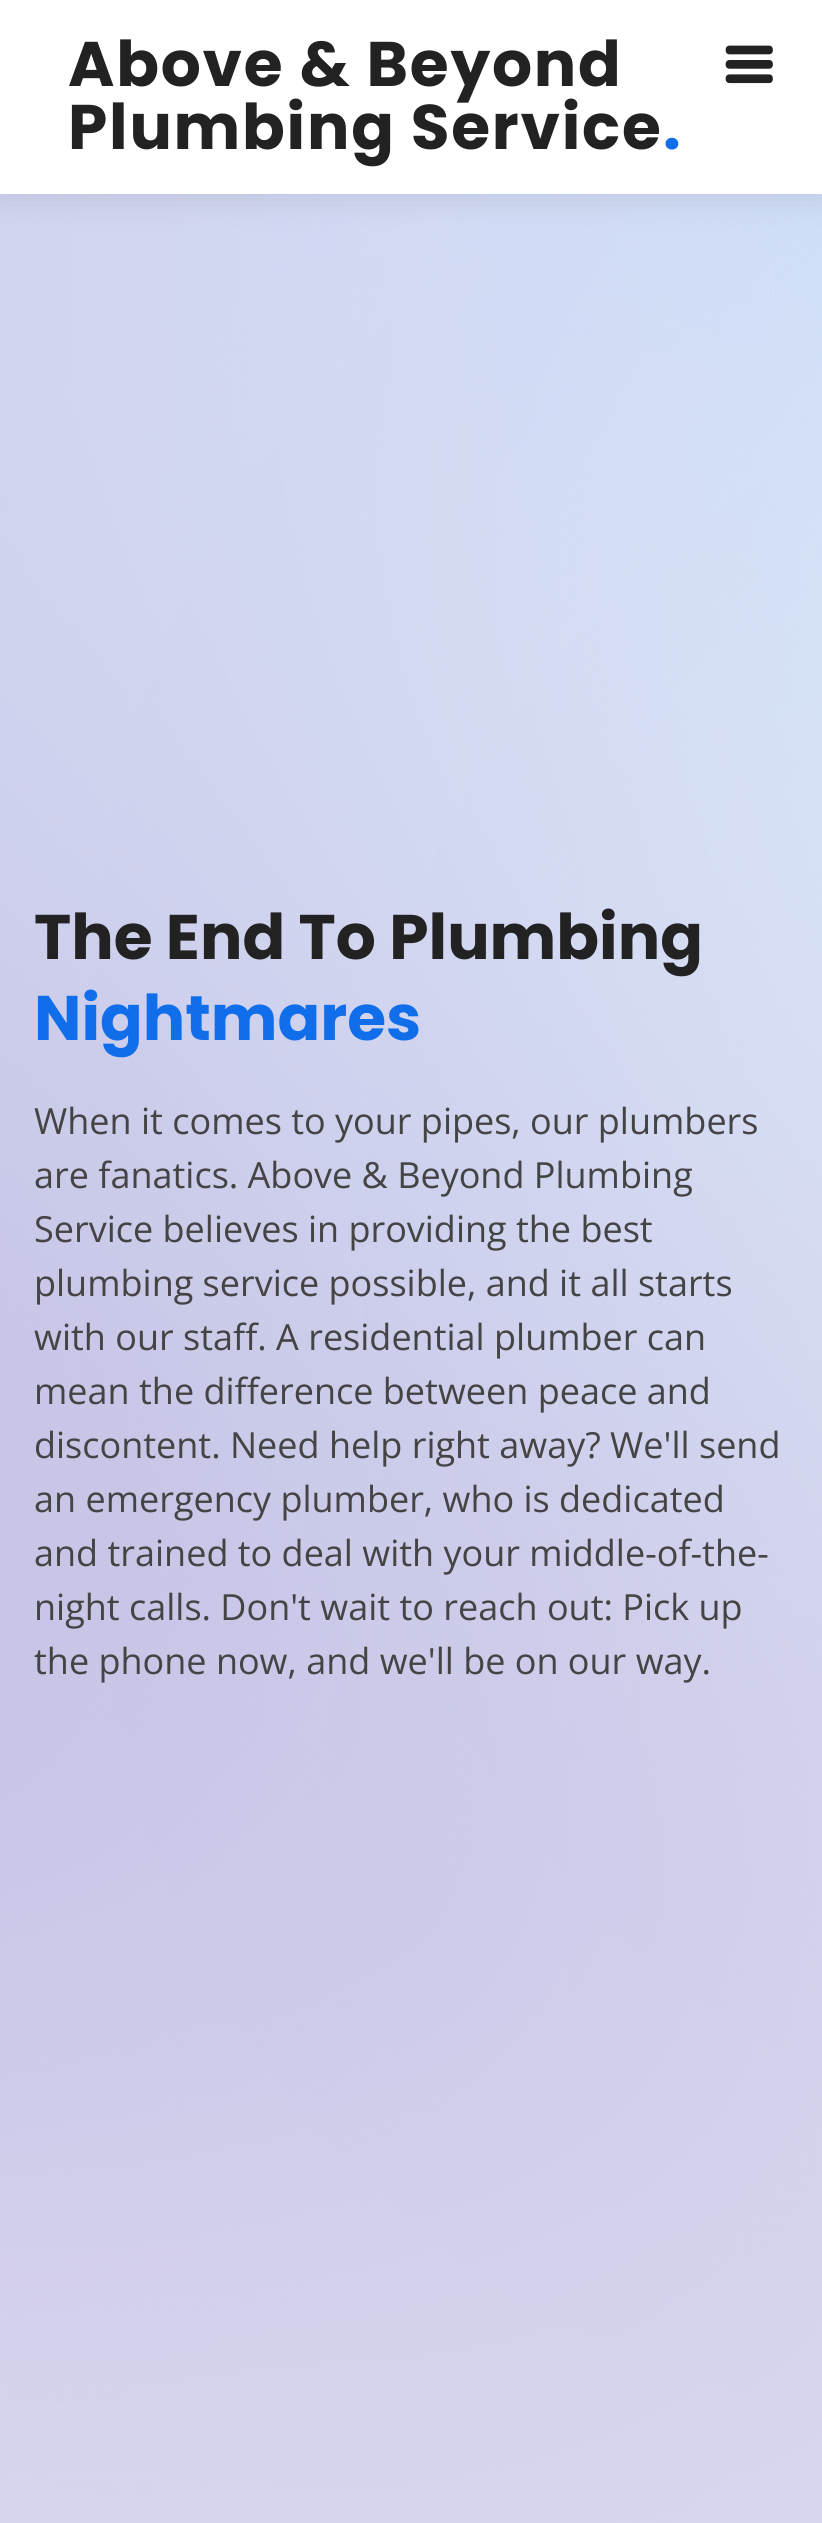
#include <cairo/cairo.h>
#include <math.h>
#include <stddef.h>

static cairo_t *cr;

static void use_color(int r, int g, int b) {
  cairo_set_source_rgb(cr, r / 255.0, g / 255.0, b / 255.0);
}

static void text(double x, double y, const char *s, const char *family, double size, int italic, int bold, int r, int g, int b) {
  cairo_select_font_face(cr, family, italic ? CAIRO_FONT_SLANT_ITALIC : CAIRO_FONT_SLANT_NORMAL,
    bold ? CAIRO_FONT_WEIGHT_BOLD : CAIRO_FONT_WEIGHT_NORMAL);
  cairo_set_font_size(cr, size);
  use_color(r, g, b);
  cairo_move_to(cr, x, y);
  cairo_show_text(cr, s);
}

static void spaced_text(double x, double y, const char *s, double letter, double word) {
  cairo_move_to(cr, x, y);
  while (*s) {
    char ch[5] = {0};
    int n = 0;
    do ch[n++] = *s++; while ((*s & 0xC0) == 0x80);
    cairo_show_text(cr, ch);
    cairo_rel_move_to(cr, letter + word * (*ch == ' '), 0);
  }
}

static void box(double x, double y, double w, double h, int r, int g, int b) {
  use_color(r, g, b);
  cairo_rectangle(cr, x, y, w, h);
  cairo_fill(cr);
}

static void round_rect(double x, double y, double w, double h, double r) {
  cairo_new_sub_path(cr);
  cairo_arc(cr, x + w - r, y + h - r, r, 0, M_PI / 2);
  cairo_arc(cr, x + r, y + h - r, r, M_PI / 2, M_PI);
  cairo_arc(cr, x + r, y + r, r, M_PI, 1.5 * M_PI);
  cairo_arc(cr, x + w - r, y + r, r, 1.5 * M_PI, 2 * M_PI);
  cairo_close_path(cr);
}

static void shadow(double x, double y, double w, double h, double r, double blur, double alpha) {
  cairo_push_group_with_content(cr, CAIRO_CONTENT_ALPHA);
  cairo_set_operator(cr, CAIRO_OPERATOR_SOURCE);
  for (int i = 15; i >= -15 && fmin(w, h) + blur * i / 3 > 0; i -= 2) {
    double e = blur * i / 6;
    cairo_set_source_rgba(cr, 0, 0, 0, alpha * erfc((i - 1) / 8.5) / 2);
    round_rect(x - e, y - e, w + 2 * e, h + 2 * e, fmax(0, fmin(r + e + blur * .6, fmin(w, h) / 2 + e)));
    cairo_fill(cr);
  }
  cairo_pattern_t *soft = cairo_pop_group(cr);
  cairo_mask(cr, soft);
  cairo_pattern_destroy(soft);
}

static void picture(const char *path, double x, double y, double w, double h) {
  cairo_surface_t *image = cairo_image_surface_create_from_png(path);
  cairo_save(cr);
  cairo_set_source_surface(cr, image, x, y);
  cairo_rectangle(cr, x, y, w, h);
  cairo_fill(cr);
  cairo_restore(cr);
  cairo_surface_destroy(image);
}

static void draw(void) {
  use_color(255, 255, 255);
  cairo_paint(cr);
  picture("img_02.png", 0, 194, 822, 2329);
  use_color(0, 0, 0);
  shadow(0, 5, 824, 193, 0, 17, 0.1);
  box(0, 0, 822, 194, 255, 255, 255);
  picture("img_01.png", 725, 45, 48, 39);
  cairo_select_font_face(cr, "Poppins", CAIRO_FONT_SLANT_NORMAL, CAIRO_FONT_WEIGHT_BOLD);
  cairo_set_font_size(cr, 63);
  use_color(34, 34, 34);
  spaced_text(68, 86, "Above & Beyond", 1.75, 0);
  spaced_text(68, 149, "Plumbing Service", 1.75, 0);
  use_color(16, 110, 234);
  spaced_text(663, 149, ".", 1.75, 0);
  text(34, 959, "The End To Plumbing", "Poppins", 63, 0, 1, 34, 34, 34);
  text(34, 1040, "Nightmares", "Poppins", 63, 0, 1, 16, 110, 234);
  text(34, 1134, "When it comes to your pipes, our plumbers", "Open Sans", 36, 0, 0, 68, 68, 68);
  text(34, 1188, "are fanatics. Above & Beyond Plumbing", "Open Sans", 36, 0, 0, 68, 68, 68);
  text(34, 1242, "Service believes in providing the best", "Open Sans", 36, 0, 0, 68, 68, 68);
  text(34, 1296, "plumbing service possible, and it all starts", "Open Sans", 36, 0, 0, 68, 68, 68);
  text(34, 1350, "with our staff. A residential plumber can", "Open Sans", 36, 0, 0, 68, 68, 68);
  text(34, 1404, "mean the difference between peace and", "Open Sans", 36, 0, 0, 68, 68, 68);
  text(34, 1458, "discontent. Need help right away? We'll send", "Open Sans", 36, 0, 0, 68, 68, 68);
  text(34, 1512, "an emergency plumber, who is dedicated", "Open Sans", 36, 0, 0, 68, 68, 68);
  text(34, 1566, "and trained to deal with your middle-of-the-", "Open Sans", 36, 0, 0, 68, 68, 68);
  text(34, 1620, "night calls. Don't wait to reach out: Pick up", "Open Sans", 36, 0, 0, 68, 68, 68);
  text(34, 1674, "the phone now, and we'll be on our way.", "Open Sans", 36, 0, 0, 68, 68, 68);
}

int main(void) {
  cairo_surface_t *surface = cairo_image_surface_create(CAIRO_FORMAT_RGB24, 822, 2523);
  cr = cairo_create(surface);
  cairo_font_options_t *options = cairo_font_options_create();
  cairo_font_options_set_hint_metrics(options, CAIRO_HINT_METRICS_OFF);
  cairo_font_options_set_hint_style(options, CAIRO_HINT_STYLE_NONE);
  cairo_set_font_options(cr, options);
  cairo_set_miter_limit(cr, 4);
  draw();
  cairo_surface_write_to_png(surface, "out.png");
  cairo_font_options_destroy(options);
  cairo_destroy(cr);
  cairo_surface_destroy(surface);
  return 0;
}
